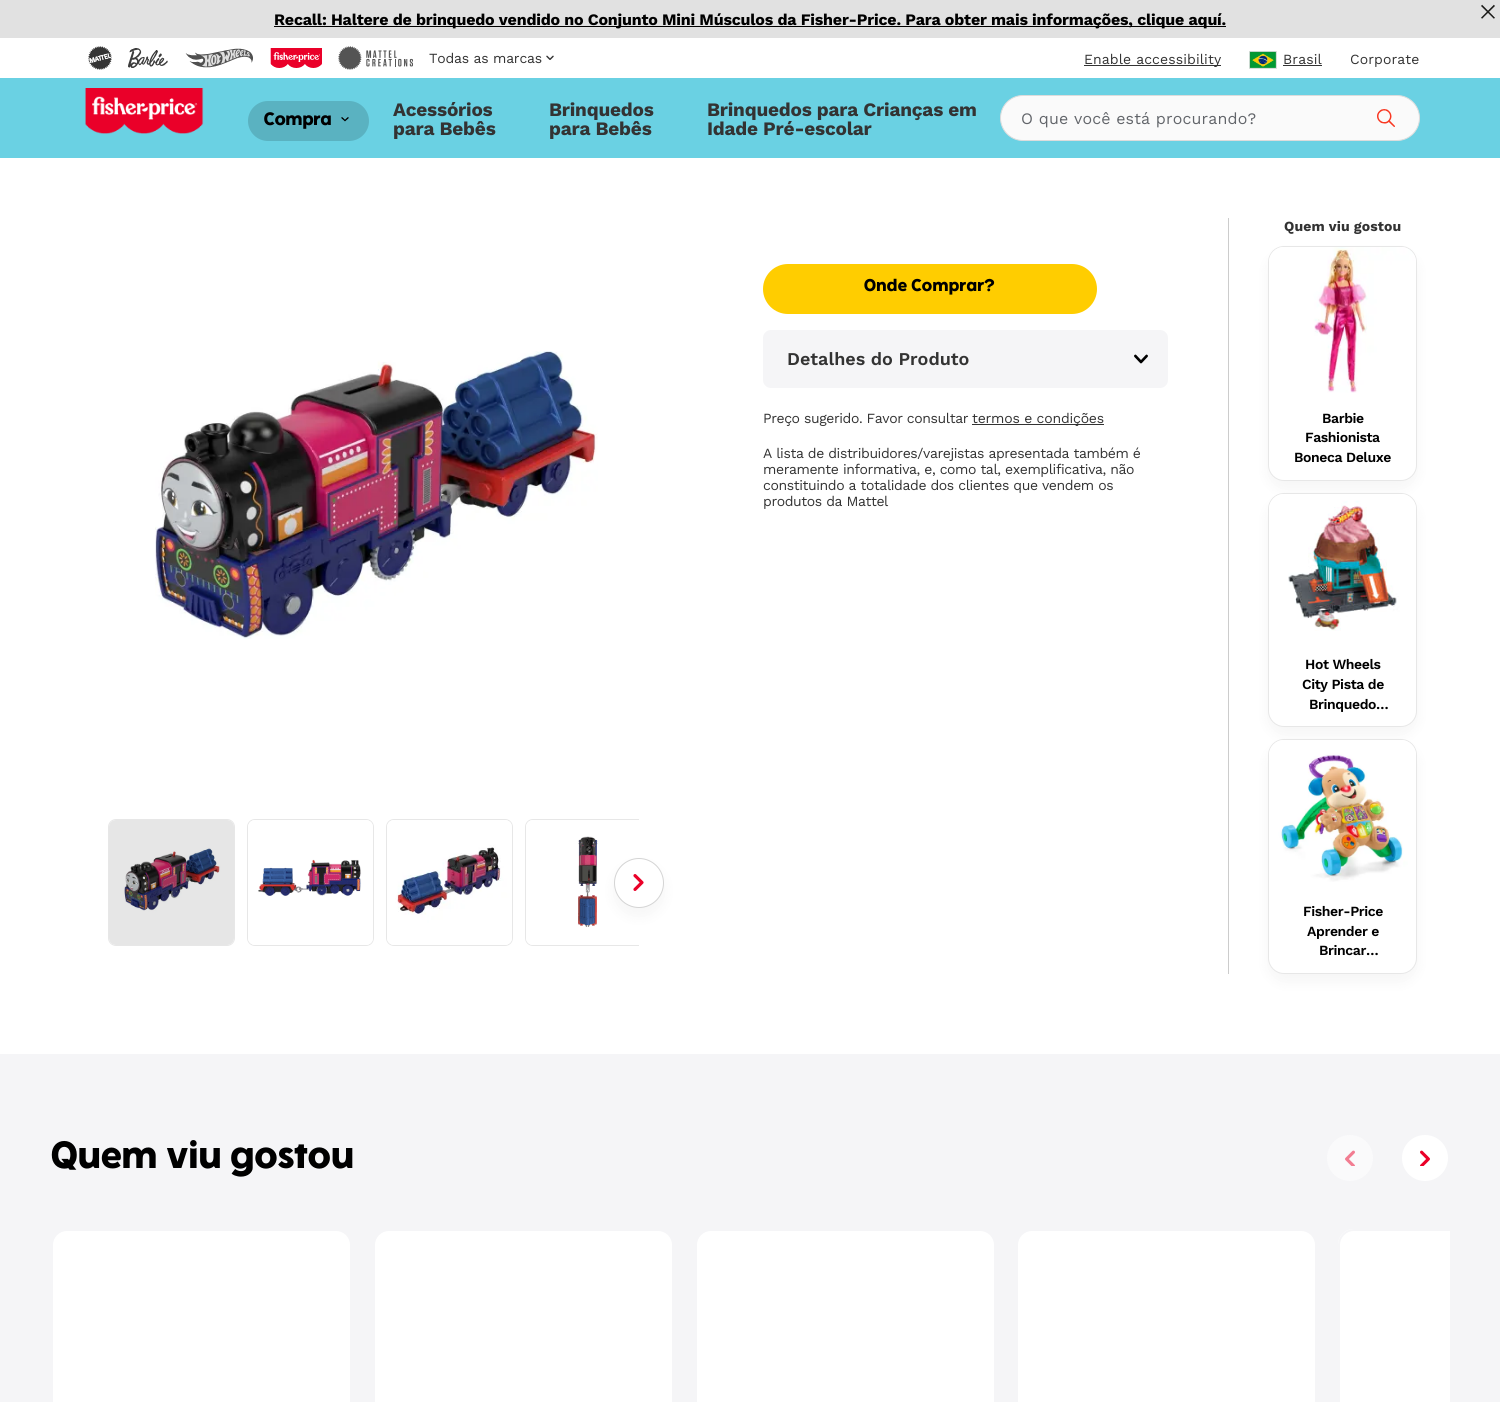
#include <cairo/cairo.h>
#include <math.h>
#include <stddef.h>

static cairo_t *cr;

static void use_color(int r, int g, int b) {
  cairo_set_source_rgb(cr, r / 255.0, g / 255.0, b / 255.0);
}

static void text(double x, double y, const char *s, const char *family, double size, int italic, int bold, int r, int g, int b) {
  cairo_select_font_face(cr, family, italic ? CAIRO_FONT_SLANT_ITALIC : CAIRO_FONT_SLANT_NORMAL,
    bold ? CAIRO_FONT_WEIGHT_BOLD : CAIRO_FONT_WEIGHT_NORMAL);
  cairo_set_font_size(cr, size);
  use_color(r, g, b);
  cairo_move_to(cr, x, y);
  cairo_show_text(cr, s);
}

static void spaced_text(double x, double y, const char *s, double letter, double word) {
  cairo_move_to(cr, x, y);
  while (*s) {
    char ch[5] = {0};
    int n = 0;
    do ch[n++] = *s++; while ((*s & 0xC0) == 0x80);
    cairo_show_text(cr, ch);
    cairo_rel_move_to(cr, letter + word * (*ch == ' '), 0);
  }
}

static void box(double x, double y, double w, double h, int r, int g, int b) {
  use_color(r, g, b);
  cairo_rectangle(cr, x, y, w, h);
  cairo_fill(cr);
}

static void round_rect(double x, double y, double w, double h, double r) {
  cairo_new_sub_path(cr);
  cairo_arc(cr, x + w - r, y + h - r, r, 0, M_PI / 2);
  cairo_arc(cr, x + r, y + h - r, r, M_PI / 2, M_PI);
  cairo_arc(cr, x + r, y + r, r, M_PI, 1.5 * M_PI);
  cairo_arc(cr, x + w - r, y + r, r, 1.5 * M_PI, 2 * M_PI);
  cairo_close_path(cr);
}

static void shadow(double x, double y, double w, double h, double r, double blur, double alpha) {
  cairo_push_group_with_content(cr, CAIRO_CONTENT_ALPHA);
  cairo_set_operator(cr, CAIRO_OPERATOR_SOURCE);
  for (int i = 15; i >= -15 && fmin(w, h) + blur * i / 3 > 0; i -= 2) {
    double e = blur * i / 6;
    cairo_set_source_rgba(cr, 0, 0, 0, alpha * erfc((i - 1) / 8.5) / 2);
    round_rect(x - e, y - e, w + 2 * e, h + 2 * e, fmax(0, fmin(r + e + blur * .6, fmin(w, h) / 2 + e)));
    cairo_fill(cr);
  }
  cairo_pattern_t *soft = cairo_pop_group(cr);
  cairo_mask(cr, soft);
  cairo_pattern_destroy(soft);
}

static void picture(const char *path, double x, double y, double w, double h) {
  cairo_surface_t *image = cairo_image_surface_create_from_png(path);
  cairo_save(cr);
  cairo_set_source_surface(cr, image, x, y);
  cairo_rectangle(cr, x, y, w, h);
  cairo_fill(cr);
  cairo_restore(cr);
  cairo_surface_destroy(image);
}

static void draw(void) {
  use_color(255, 255, 255);
  cairo_paint(cr);
  box(0, 0, 1500, 38, 225, 225, 225);
  picture("img_01.png", 1481, 4, 14, 15);
  box(274, 26, 952, 1, 0, 0, 0);
  picture("img_02.png", 88, 46, 24, 24);
  picture("img_03.png", 128, 48, 40, 20);
  picture("img_04.png", 185, 48, 68, 20);
  picture("img_05.png", 270, 48, 52, 20);
  picture("img_06.png", 338, 46, 75, 24);
  picture("img_07.png", 546, 55, 8, 5);
  box(1084, 65, 137, 1, 51, 51, 51);
  picture("img_08.png", 1249, 51, 28, 18);
  box(1283, 65, 39, 1, 51, 51, 51);
  box(0, 78, 1500, 80, 106, 209, 227);
  picture("img_09.png", 85, 88, 119, 46);
  use_color(90, 178, 193);
  round_rect(248, 101, 121, 40, 20);
  cairo_fill(cr);
  picture("img_10.png", 341, 117, 8, 5);
  use_color(250, 250, 250);
  round_rect(1000.5, 95.5, 419, 45, 22.5);
  cairo_fill_preserve(cr);
  use_color(220, 220, 220);
  cairo_set_line_width(cr, 1);
  cairo_stroke(cr);
  picture("img_11.png", 1377, 109, 18, 18);
  picture("img_12.png", 155, 351, 443, 288);
  round_rect(108.5, 819.5, 126, 126, 7.5);
  use_color(231, 231, 231);
  cairo_stroke(cr);
  picture("img_13.png", 109, 820, 125, 125);
  cairo_set_source_rgba(cr, 0, 0, 0, 0.1);
  round_rect(109, 820, 125, 125, 7);
  cairo_fill(cr);
  round_rect(247.5, 819.5, 126, 126, 7.5);
  use_color(231, 231, 231);
  cairo_stroke(cr);
  picture("img_14.png", 248, 820, 125, 125);
  round_rect(386.5, 819.5, 126, 126, 7.5);
  cairo_stroke(cr);
  picture("img_15.png", 387, 820, 125, 125);
  cairo_save(cr);
  cairo_rectangle(cr, 108, 819, 531, 127);
  cairo_clip(cr);
  round_rect(525.5, 819.5, 126, 126, 7.5);
  cairo_stroke(cr);
  cairo_restore(cr);
  picture("img_16.png", 526, 820, 72, 125);
  use_color(0, 0, 0);
  shadow(614, 866, 50, 50, 25, 8, 0.04);
  use_color(255, 255, 255);
  cairo_arc(cr, 639, 883, 24.5, 0, 2 * M_PI);
  cairo_fill_preserve(cr);
  use_color(212, 212, 212);
  cairo_stroke(cr);
  picture("img_17.png", 633, 874, 11, 17);
  use_color(255, 205, 0);
  round_rect(763, 264, 334, 50, 25);
  cairo_fill(cr);
  use_color(245, 245, 247);
  round_rect(763, 330, 405, 58, 8);
  cairo_fill(cr);
  picture("img_18.png", 1134, 354, 14, 10);
  box(972, 424, 132, 1, 51, 51, 51);
  box(1228, 218, 1, 756, 204, 204, 204);
  use_color(0, 0, 0);
  shadow(1268, 254, 149, 235, 16, 8, 0.04);
  use_color(255, 255, 255);
  round_rect(1268.5, 246.5, 148, 234, 15.5);
  cairo_fill_preserve(cr);
  use_color(231, 231, 231);
  cairo_stroke(cr);
  picture("img_19.png", 1269, 247, 147, 146);
  use_color(0, 0, 0);
  shadow(1268, 501, 149, 234, 16, 8, 0.04);
  use_color(255, 255, 255);
  round_rect(1268.5, 493.5, 148, 233, 15.5);
  cairo_fill_preserve(cr);
  use_color(231, 231, 231);
  cairo_stroke(cr);
  picture("img_20.png", 1269, 494, 147, 137);
  use_color(0, 0, 0);
  shadow(1268, 747, 149, 235, 16, 8, 0.04);
  use_color(255, 255, 255);
  round_rect(1268.5, 739.5, 148, 234, 15.5);
  cairo_fill_preserve(cr);
  use_color(231, 231, 231);
  cairo_stroke(cr);
  picture("img_21.png", 1269, 740, 147, 142);
  box(0, 1054, 1450, 348, 245, 245, 247);
  use_color(250, 250, 251);
  cairo_arc(cr, 1350, 1158, 24, 0, 2 * M_PI);
  cairo_fill_preserve(cr);
  use_color(245, 245, 247);
  cairo_set_line_width(cr, 2);
  cairo_stroke(cr);
  picture("img_22.png", 1345, 1150, 10, 16);
  use_color(255, 255, 255);
  cairo_arc(cr, 1425, 1158, 24, 0, 2 * M_PI);
  cairo_fill_preserve(cr);
  use_color(245, 245, 247);
  cairo_stroke(cr);
  picture("img_23.png", 1420, 1150, 10, 16);
  use_color(255, 255, 255);
  round_rect(52, 1230, 299, 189, 15);
  cairo_fill_preserve(cr);
  use_color(245, 245, 247);
  cairo_stroke(cr);
  use_color(255, 255, 255);
  round_rect(374, 1230, 299, 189, 15);
  cairo_fill_preserve(cr);
  use_color(245, 245, 247);
  cairo_stroke(cr);
  use_color(255, 255, 255);
  round_rect(696, 1230, 299, 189, 15);
  cairo_fill_preserve(cr);
  use_color(245, 245, 247);
  cairo_stroke(cr);
  use_color(255, 255, 255);
  round_rect(1017, 1230, 299, 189, 15);
  cairo_fill_preserve(cr);
  use_color(245, 245, 247);
  cairo_stroke(cr);
  use_color(255, 255, 255);
  cairo_new_path(cr);
  cairo_move_to(cr, 1354, 1229);
  cairo_line_to(cr, 1450, 1229);
  cairo_line_to(cr, 1450, 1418);
  cairo_line_to(cr, 1354, 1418);
  cairo_curve_to(cr, 1345, 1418, 1338, 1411, 1338, 1402);
  cairo_line_to(cr, 1338, 1245);
  cairo_curve_to(cr, 1338, 1236, 1345, 1229, 1354, 1229);
  cairo_close_path(cr);
  cairo_fill(cr);
  round_rect(1339, 1230, 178, 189, 15);
  use_color(245, 245, 247);
  cairo_stroke(cr);
  box(1450, 1054, 50, 348, 245, 245, 247);
  cairo_select_font_face(cr, "Work Sans", CAIRO_FONT_SLANT_NORMAL, CAIRO_FONT_WEIGHT_BOLD);
  cairo_set_font_size(cr, 16);
  use_color(0, 0, 0);
  spaced_text(274, 25, "Recall: Haltere de brinquedo vendido no Conjunto Mini Músculos da Fisher-Price. Para obter mais informações, clique aquí.", -0.2, 0);
  cairo_select_font_face(cr, "Work Sans", CAIRO_FONT_SLANT_NORMAL, CAIRO_FONT_WEIGHT_NORMAL);
  cairo_set_font_size(cr, 14);
  use_color(51, 51, 51);
  spaced_text(429, 63, "Todas as marcas", -0.2, 0);
  spaced_text(1084, 64, "Enable accessibility", 0.1, 0);
  spaced_text(1283, 64, "Brasil", 0.15, 0);
  spaced_text(1350, 64, "Corporate", 0.1, 0);
  text(264, 125, "Compra", "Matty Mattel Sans", 19, 0, 1, 0, 0, 0);
  cairo_select_font_face(cr, "Work Sans", CAIRO_FONT_SLANT_NORMAL, CAIRO_FONT_WEIGHT_BOLD);
  use_color(51, 51, 51);
  spaced_text(393, 116, "Acessórios", -0.2, 0);
  spaced_text(393, 135, "para Bebês", -0.2, 0);
  spaced_text(549, 116, "Brinquedos", -0.2, 0);
  spaced_text(549, 135, "para Bebês", -0.2, 0);
  spaced_text(707, 116, "Brinquedos para Crianças em", -0.2, 0);
  spaced_text(707, 135, "Idade Pré-escolar", -0.2, 0);
  cairo_select_font_face(cr, "Work Sans", CAIRO_FONT_SLANT_NORMAL, CAIRO_FONT_WEIGHT_NORMAL);
  cairo_set_font_size(cr, 16);
  use_color(98, 101, 106);
  spaced_text(1021, 124, "O que você está procurando?", 0.15, 0);
  cairo_select_font_face(cr, "Matty Mattel Sans", CAIRO_FONT_SLANT_NORMAL, CAIRO_FONT_WEIGHT_BOLD);
  cairo_set_font_size(cr, 18);
  use_color(0, 0, 0);
  spaced_text(864, 291, "Onde Comprar?", 0.3, 0);
  text(787, 365, "Detalhes do Produto", "Work Sans SemiBold", 18, 0, 0, 51, 51, 51);
  cairo_select_font_face(cr, "Work Sans", CAIRO_FONT_SLANT_NORMAL, CAIRO_FONT_WEIGHT_NORMAL);
  cairo_set_font_size(cr, 14);
  spaced_text(763, 423, "Preço sugerido. Favor consultar", -0.4, 0);
  spaced_text(972, 423, "termos e condições", -0.2, 0);
  spaced_text(763, 458, "A lista de distribuidores/varejistas apresentada também é", -0.4, 0);
  spaced_text(763, 474, "meramente informativa, e, como tal, exemplificativa, não", -0.4, 0);
  spaced_text(763, 490, "constituindo a totalidade dos clientes que vendem os", -0.4, 0);
  spaced_text(763, 506, "produtos da Mattel", -0.4, 0);
  cairo_select_font_face(cr, "Work Sans", CAIRO_FONT_SLANT_NORMAL, CAIRO_FONT_WEIGHT_BOLD);
  spaced_text(1284, 231, "Quem viu gostou", 0.1, 0);
  cairo_select_font_face(cr, "Work Sans SemiBold", CAIRO_FONT_SLANT_NORMAL, CAIRO_FONT_WEIGHT_NORMAL);
  use_color(0, 0, 0);
  spaced_text(1322, 423, "Barbie", -0.4, 0);
  spaced_text(1305, 442, "Fashionista", -0.4, 0);
  spaced_text(1294, 462, "Boneca Deluxe", -0.4, 0);
  spaced_text(1305, 669, "Hot Wheels", -0.4, 0);
  spaced_text(1302, 689, "City Pista de", -0.4, 0);
  spaced_text(1309, 709, "Brinquedo…", -0.4, 0);
  spaced_text(1303, 916, "Fisher-Price", -0.4, 0);
  spaced_text(1307, 936, "Aprender e", -0.4, 0);
  spaced_text(1319, 955, "Brincar…", -0.4, 0);
  cairo_select_font_face(cr, "Matty Mattel Sans", CAIRO_FONT_SLANT_NORMAL, CAIRO_FONT_WEIGHT_BOLD);
  cairo_set_font_size(cr, 40);
  spaced_text(51, 1168, "Quem viu gostou", 0.25, 0);
}

int main(void) {
  cairo_surface_t *surface = cairo_image_surface_create(CAIRO_FORMAT_RGB24, 1500, 1402);
  cr = cairo_create(surface);
  cairo_font_options_t *options = cairo_font_options_create();
  cairo_font_options_set_hint_metrics(options, CAIRO_HINT_METRICS_OFF);
  cairo_font_options_set_hint_style(options, CAIRO_HINT_STYLE_NONE);
  cairo_set_font_options(cr, options);
  cairo_set_miter_limit(cr, 4);
  draw();
  cairo_surface_write_to_png(surface, "out.png");
  cairo_font_options_destroy(options);
  cairo_destroy(cr);
  cairo_surface_destroy(surface);
  return 0;
}
